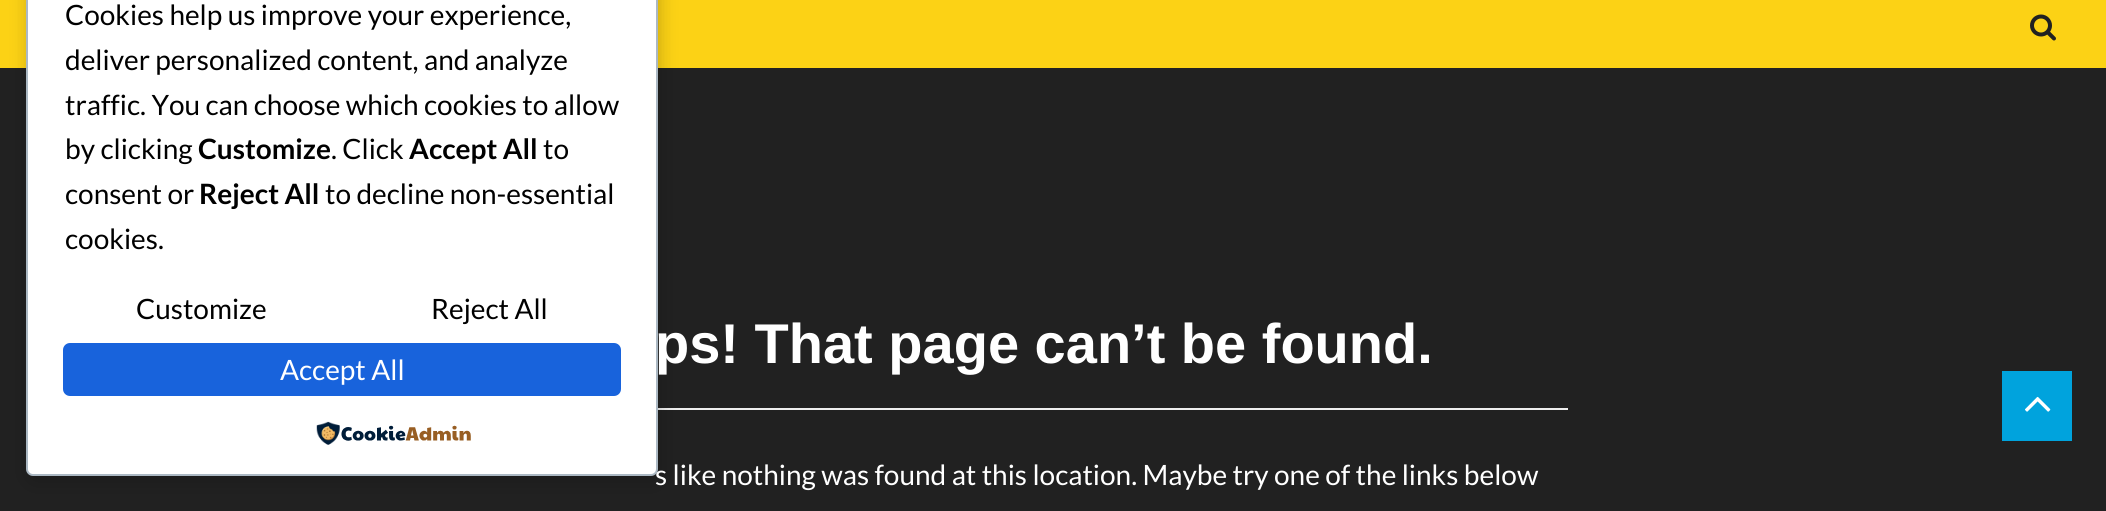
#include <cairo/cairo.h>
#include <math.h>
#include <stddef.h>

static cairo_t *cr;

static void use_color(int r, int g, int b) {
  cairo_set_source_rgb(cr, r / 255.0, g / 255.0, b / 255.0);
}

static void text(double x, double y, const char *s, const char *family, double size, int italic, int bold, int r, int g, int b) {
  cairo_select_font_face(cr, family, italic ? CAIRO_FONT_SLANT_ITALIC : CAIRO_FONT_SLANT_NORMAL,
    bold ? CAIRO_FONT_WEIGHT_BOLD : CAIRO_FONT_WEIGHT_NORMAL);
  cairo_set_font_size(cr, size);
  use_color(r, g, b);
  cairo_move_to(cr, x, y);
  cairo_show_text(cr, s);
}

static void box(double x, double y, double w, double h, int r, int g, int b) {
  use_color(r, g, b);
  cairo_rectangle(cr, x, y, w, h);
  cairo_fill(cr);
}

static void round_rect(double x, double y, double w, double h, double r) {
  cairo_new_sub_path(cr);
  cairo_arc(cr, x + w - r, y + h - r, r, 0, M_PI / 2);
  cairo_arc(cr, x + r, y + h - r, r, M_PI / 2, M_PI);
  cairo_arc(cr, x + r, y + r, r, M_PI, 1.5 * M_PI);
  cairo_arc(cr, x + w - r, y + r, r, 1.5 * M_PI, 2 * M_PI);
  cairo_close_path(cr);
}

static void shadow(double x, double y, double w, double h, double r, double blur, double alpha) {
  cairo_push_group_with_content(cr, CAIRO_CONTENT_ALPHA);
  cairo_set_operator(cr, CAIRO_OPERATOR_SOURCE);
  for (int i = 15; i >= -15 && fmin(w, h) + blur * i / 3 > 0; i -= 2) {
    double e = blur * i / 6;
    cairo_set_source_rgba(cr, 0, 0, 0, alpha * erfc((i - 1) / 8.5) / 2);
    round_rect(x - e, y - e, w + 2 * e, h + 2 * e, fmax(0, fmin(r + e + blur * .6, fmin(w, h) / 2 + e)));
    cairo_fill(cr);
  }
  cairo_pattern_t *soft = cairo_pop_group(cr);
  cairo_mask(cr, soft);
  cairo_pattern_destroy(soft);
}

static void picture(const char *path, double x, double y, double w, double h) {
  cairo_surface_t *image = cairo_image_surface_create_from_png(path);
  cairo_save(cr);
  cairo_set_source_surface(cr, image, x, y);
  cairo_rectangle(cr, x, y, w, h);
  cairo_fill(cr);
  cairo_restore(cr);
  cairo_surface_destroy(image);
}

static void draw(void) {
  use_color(33, 33, 33);
  cairo_paint(cr);
  box(0, 0, 2106, 68, 252, 210, 21);
  box(658, 408, 910, 2, 238, 238, 238);
  use_color(0, 0, 0);
  shadow(28, -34, 632, 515, 7, 9, 0.2);
  use_color(255, 255, 255);
  round_rect(27, -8, 630, 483, 6);
  cairo_fill_preserve(cr);
  use_color(171, 184, 195);
  cairo_stroke(cr);
  use_color(24, 99, 220);
  round_rect(63, 343, 558, 53, 7);
  cairo_fill(cr);
  picture("img_01.png", 316, 421, 155, 24);
  picture("img_02.png", 2030, 14, 26, 27);
  box(2002, 371, 70, 70, 0, 163, 221);
  picture("img_03.png", 2025, 396, 26, 16);
  text(65, 25, "Cookies help us improve your experience,", "Lato", 28, 0, 0, 0, 0, 0);
  text(65, 70, "deliver personalized content, and analyze", "Lato", 28, 0, 0, 0, 0, 0);
  text(65, 115, "traffic. You can choose which cookies to allow", "Lato", 28, 0, 0, 0, 0, 0);
  text(65, 159, "by clicking", "Lato", 28, 0, 0, 0, 0, 0);
  text(198, 159, "Customize", "Lato", 28, 0, 1, 0, 0, 0);
  text(331, 159, ". Click", "Lato", 28, 0, 0, 0, 0, 0);
  text(409, 159, "Accept All", "Lato", 28, 0, 1, 0, 0, 0);
  text(543, 159, "to", "Lato", 28, 0, 0, 0, 0, 0);
  text(65, 204, "consent or", "Lato", 28, 0, 0, 0, 0, 0);
  text(199, 204, "Reject All", "Lato", 28, 0, 1, 0, 0, 0);
  text(325, 204, "to decline non-essential", "Lato", 28, 0, 0, 0, 0, 0);
  text(65, 249, "cookies.", "Lato", 28, 0, 0, 0, 0, 0);
  text(136, 319, "Customize", "Lato", 28, 0, 0, 0, 0, 0);
  text(431, 319, "Reject All", "Lato", 28, 0, 0, 0, 0, 0);
  text(280, 380, "Accept All", "Lato", 28, 0, 0, 255, 255, 255);
  text(655, 363, "ps! That page can’t be found.", "Liberation Sans", 56, 0, 1, 255, 255, 255);
  text(655, 485, "s like nothing was found at this location. Maybe try one of the links below", "Lato", 28, 0, 0, 255, 255, 255);
}

int main(void) {
  cairo_surface_t *surface = cairo_image_surface_create(CAIRO_FORMAT_RGB24, 2106, 511);
  cr = cairo_create(surface);
  cairo_font_options_t *options = cairo_font_options_create();
  cairo_font_options_set_hint_metrics(options, CAIRO_HINT_METRICS_OFF);
  cairo_font_options_set_hint_style(options, CAIRO_HINT_STYLE_NONE);
  cairo_set_font_options(cr, options);
  cairo_set_miter_limit(cr, 4);
  draw();
  cairo_surface_write_to_png(surface, "out.png");
  cairo_font_options_destroy(options);
  cairo_destroy(cr);
  cairo_surface_destroy(surface);
  return 0;
}
